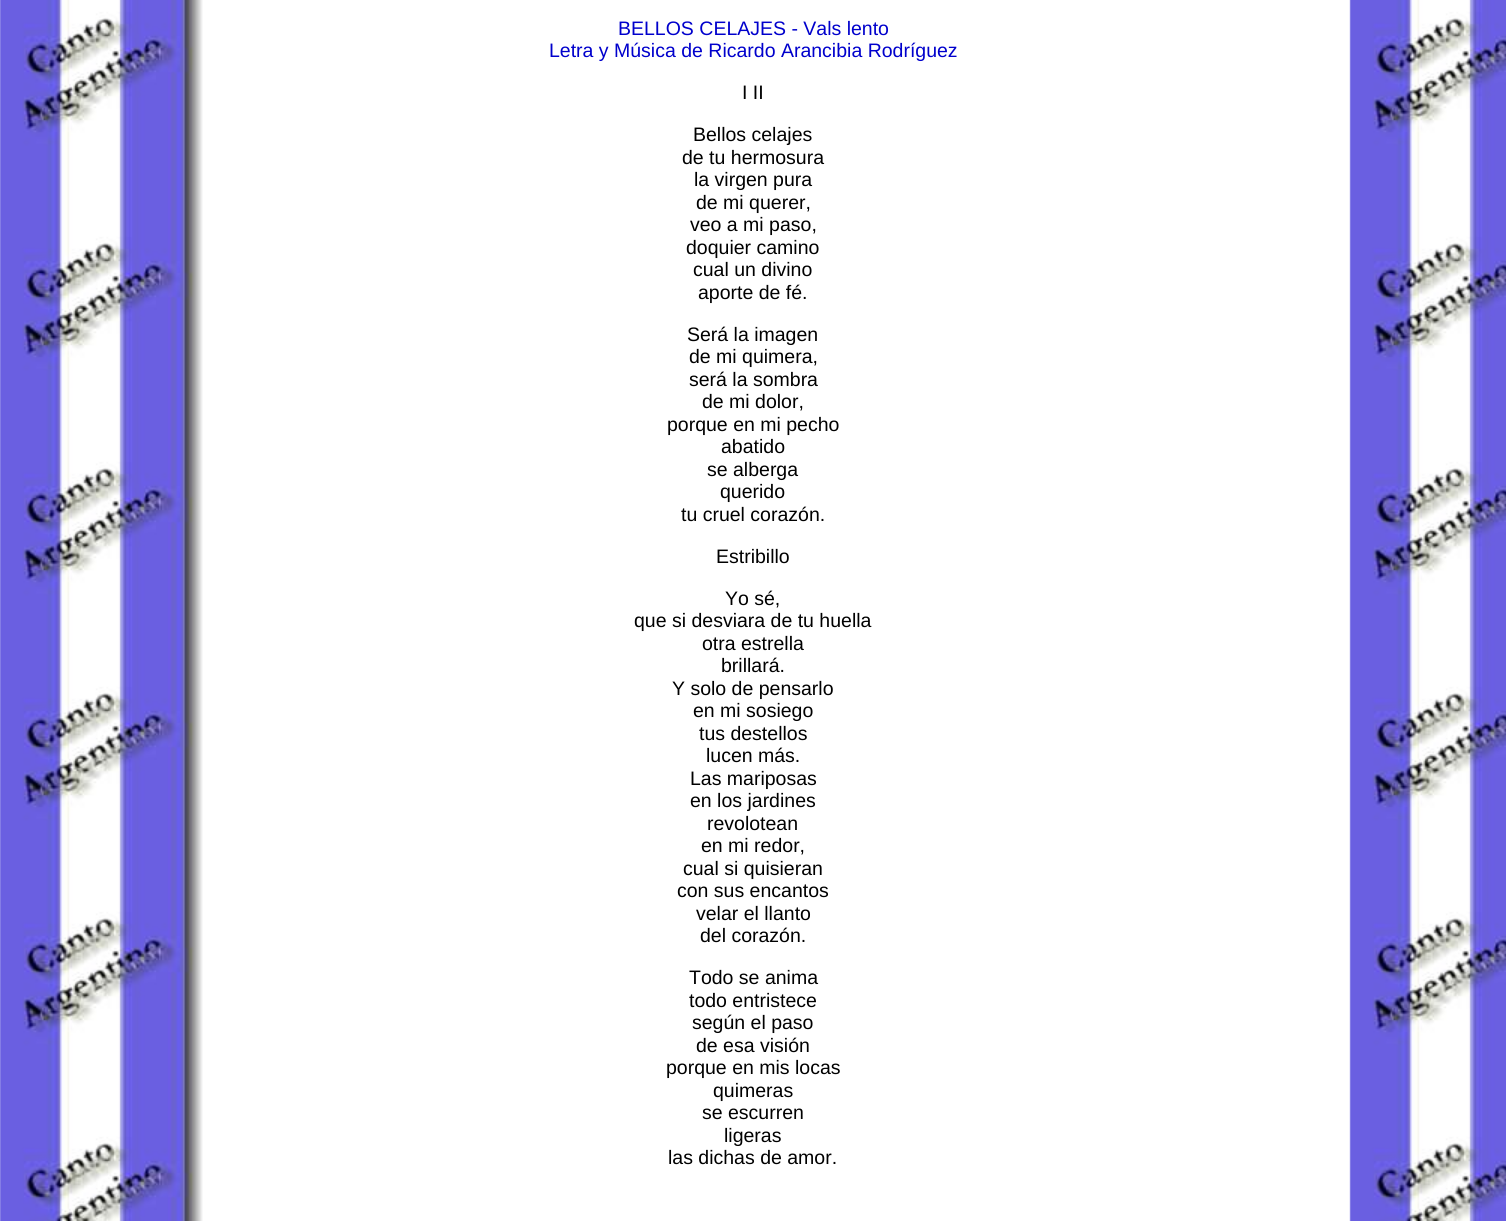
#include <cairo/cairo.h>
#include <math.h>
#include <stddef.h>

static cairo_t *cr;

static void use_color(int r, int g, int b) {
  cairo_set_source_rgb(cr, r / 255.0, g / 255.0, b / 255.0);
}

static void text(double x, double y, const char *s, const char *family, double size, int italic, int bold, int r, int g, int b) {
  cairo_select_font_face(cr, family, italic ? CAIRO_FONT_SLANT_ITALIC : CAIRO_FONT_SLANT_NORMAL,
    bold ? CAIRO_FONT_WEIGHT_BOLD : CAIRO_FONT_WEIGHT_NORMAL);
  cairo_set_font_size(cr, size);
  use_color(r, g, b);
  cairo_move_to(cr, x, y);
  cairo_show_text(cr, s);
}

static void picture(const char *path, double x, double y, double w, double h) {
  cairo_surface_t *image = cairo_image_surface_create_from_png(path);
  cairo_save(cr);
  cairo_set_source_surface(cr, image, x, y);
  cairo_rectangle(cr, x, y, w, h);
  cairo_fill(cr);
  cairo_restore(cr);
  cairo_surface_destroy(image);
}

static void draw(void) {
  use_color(255, 255, 255);
  cairo_paint(cr);
  picture("img_01.png", 0, 0, 1506, 1221);
  text(618, 35, "BELLOS CELAJES - Vals lento", "Liberation Sans", 19.5, 0, 0, 0, 0, 204);
  text(549, 57, "Letra y Música de Ricardo Arancibia Rodríguez", "Liberation Sans", 19.5, 0, 0, 0, 0, 204);
  text(742, 99, "I II", "Liberation Sans", 19.5, 0, 0, 0, 0, 0);
  text(693, 141, "Bellos celajes", "Liberation Sans", 19.5, 0, 0, 0, 0, 0);
  text(682, 164, "de tu hermosura", "Liberation Sans", 19.5, 0, 0, 0, 0, 0);
  text(694, 186, "la virgen pura", "Liberation Sans", 19.5, 0, 0, 0, 0, 0);
  text(696, 209, "de mi querer,", "Liberation Sans", 19.5, 0, 0, 0, 0, 0);
  text(690, 231, "veo a mi paso,", "Liberation Sans", 19.5, 0, 0, 0, 0, 0);
  text(686, 254, "doquier camino", "Liberation Sans", 19.5, 0, 0, 0, 0, 0);
  text(693, 276, "cual un divino", "Liberation Sans", 19.5, 0, 0, 0, 0, 0);
  text(698, 299, "aporte de fé.", "Liberation Sans", 19.5, 0, 0, 0, 0, 0);
  text(687, 341, "Será la imagen", "Liberation Sans", 19.5, 0, 0, 0, 0, 0);
  text(689, 363, "de mi quimera,", "Liberation Sans", 19.5, 0, 0, 0, 0, 0);
  text(689, 386, "será la sombra", "Liberation Sans", 19.5, 0, 0, 0, 0, 0);
  text(702, 408, "de mi dolor,", "Liberation Sans", 19.5, 0, 0, 0, 0, 0);
  text(667, 431, "porque en mi pecho", "Liberation Sans", 19.5, 0, 0, 0, 0, 0);
  text(721, 453, "abatido", "Liberation Sans", 19.5, 0, 0, 0, 0, 0);
  text(707, 476, "se alberga", "Liberation Sans", 19.5, 0, 0, 0, 0, 0);
  text(720, 498, "querido", "Liberation Sans", 19.5, 0, 0, 0, 0, 0);
  text(681, 521, "tu cruel corazón.", "Liberation Sans", 19.5, 0, 0, 0, 0, 0);
  text(716, 563, "Estribillo", "Liberation Sans", 19.5, 0, 0, 0, 0, 0);
  text(725, 605, "Yo sé,", "Liberation Sans", 19.5, 0, 0, 0, 0, 0);
  text(634, 627, "que si desviara de tu huella", "Liberation Sans", 19.5, 0, 0, 0, 0, 0);
  text(702, 650, "otra estrella", "Liberation Sans", 19.5, 0, 0, 0, 0, 0);
  text(721, 672, "brillará.", "Liberation Sans", 19.5, 0, 0, 0, 0, 0);
  text(672, 695, "Y solo de pensarlo", "Liberation Sans", 19.5, 0, 0, 0, 0, 0);
  text(693, 717, "en mi sosiego", "Liberation Sans", 19.5, 0, 0, 0, 0, 0);
  text(699, 740, "tus destellos", "Liberation Sans", 19.5, 0, 0, 0, 0, 0);
  text(706, 762, "lucen más.", "Liberation Sans", 19.5, 0, 0, 0, 0, 0);
  text(690, 785, "Las mariposas", "Liberation Sans", 19.5, 0, 0, 0, 0, 0);
  text(690, 807, "en los jardines", "Liberation Sans", 19.5, 0, 0, 0, 0, 0);
  text(707, 830, "revolotean", "Liberation Sans", 19.5, 0, 0, 0, 0, 0);
  text(701, 852, "en mi redor,", "Liberation Sans", 19.5, 0, 0, 0, 0, 0);
  text(683, 875, "cual si quisieran", "Liberation Sans", 19.5, 0, 0, 0, 0, 0);
  text(677, 897, "con sus encantos", "Liberation Sans", 19.5, 0, 0, 0, 0, 0);
  text(696, 920, "velar el llanto", "Liberation Sans", 19.5, 0, 0, 0, 0, 0);
  text(700, 942, "del corazón.", "Liberation Sans", 19.5, 0, 0, 0, 0, 0);
  text(689, 984, "Todo se anima", "Liberation Sans", 19.5, 0, 0, 0, 0, 0);
  text(689, 1007, "todo entristece", "Liberation Sans", 19.5, 0, 0, 0, 0, 0);
  text(692, 1029, "según el paso", "Liberation Sans", 19.5, 0, 0, 0, 0, 0);
  text(696, 1052, "de esa visión", "Liberation Sans", 19.5, 0, 0, 0, 0, 0);
  text(666, 1074, "porque en mis locas", "Liberation Sans", 19.5, 0, 0, 0, 0, 0);
  text(713, 1097, "quimeras", "Liberation Sans", 19.5, 0, 0, 0, 0, 0);
  text(702, 1119, "se escurren", "Liberation Sans", 19.5, 0, 0, 0, 0, 0);
  text(724, 1142, "ligeras", "Liberation Sans", 19.5, 0, 0, 0, 0, 0);
  text(668, 1164, "las dichas de amor.", "Liberation Sans", 19.5, 0, 0, 0, 0, 0);
}

int main(void) {
  cairo_surface_t *surface = cairo_image_surface_create(CAIRO_FORMAT_RGB24, 1506, 1221);
  cr = cairo_create(surface);
  cairo_font_options_t *options = cairo_font_options_create();
  cairo_font_options_set_hint_metrics(options, CAIRO_HINT_METRICS_OFF);
  cairo_font_options_set_hint_style(options, CAIRO_HINT_STYLE_NONE);
  cairo_set_font_options(cr, options);
  cairo_set_miter_limit(cr, 4);
  draw();
  cairo_surface_write_to_png(surface, "out.png");
  cairo_font_options_destroy(options);
  cairo_destroy(cr);
  cairo_surface_destroy(surface);
  return 0;
}
